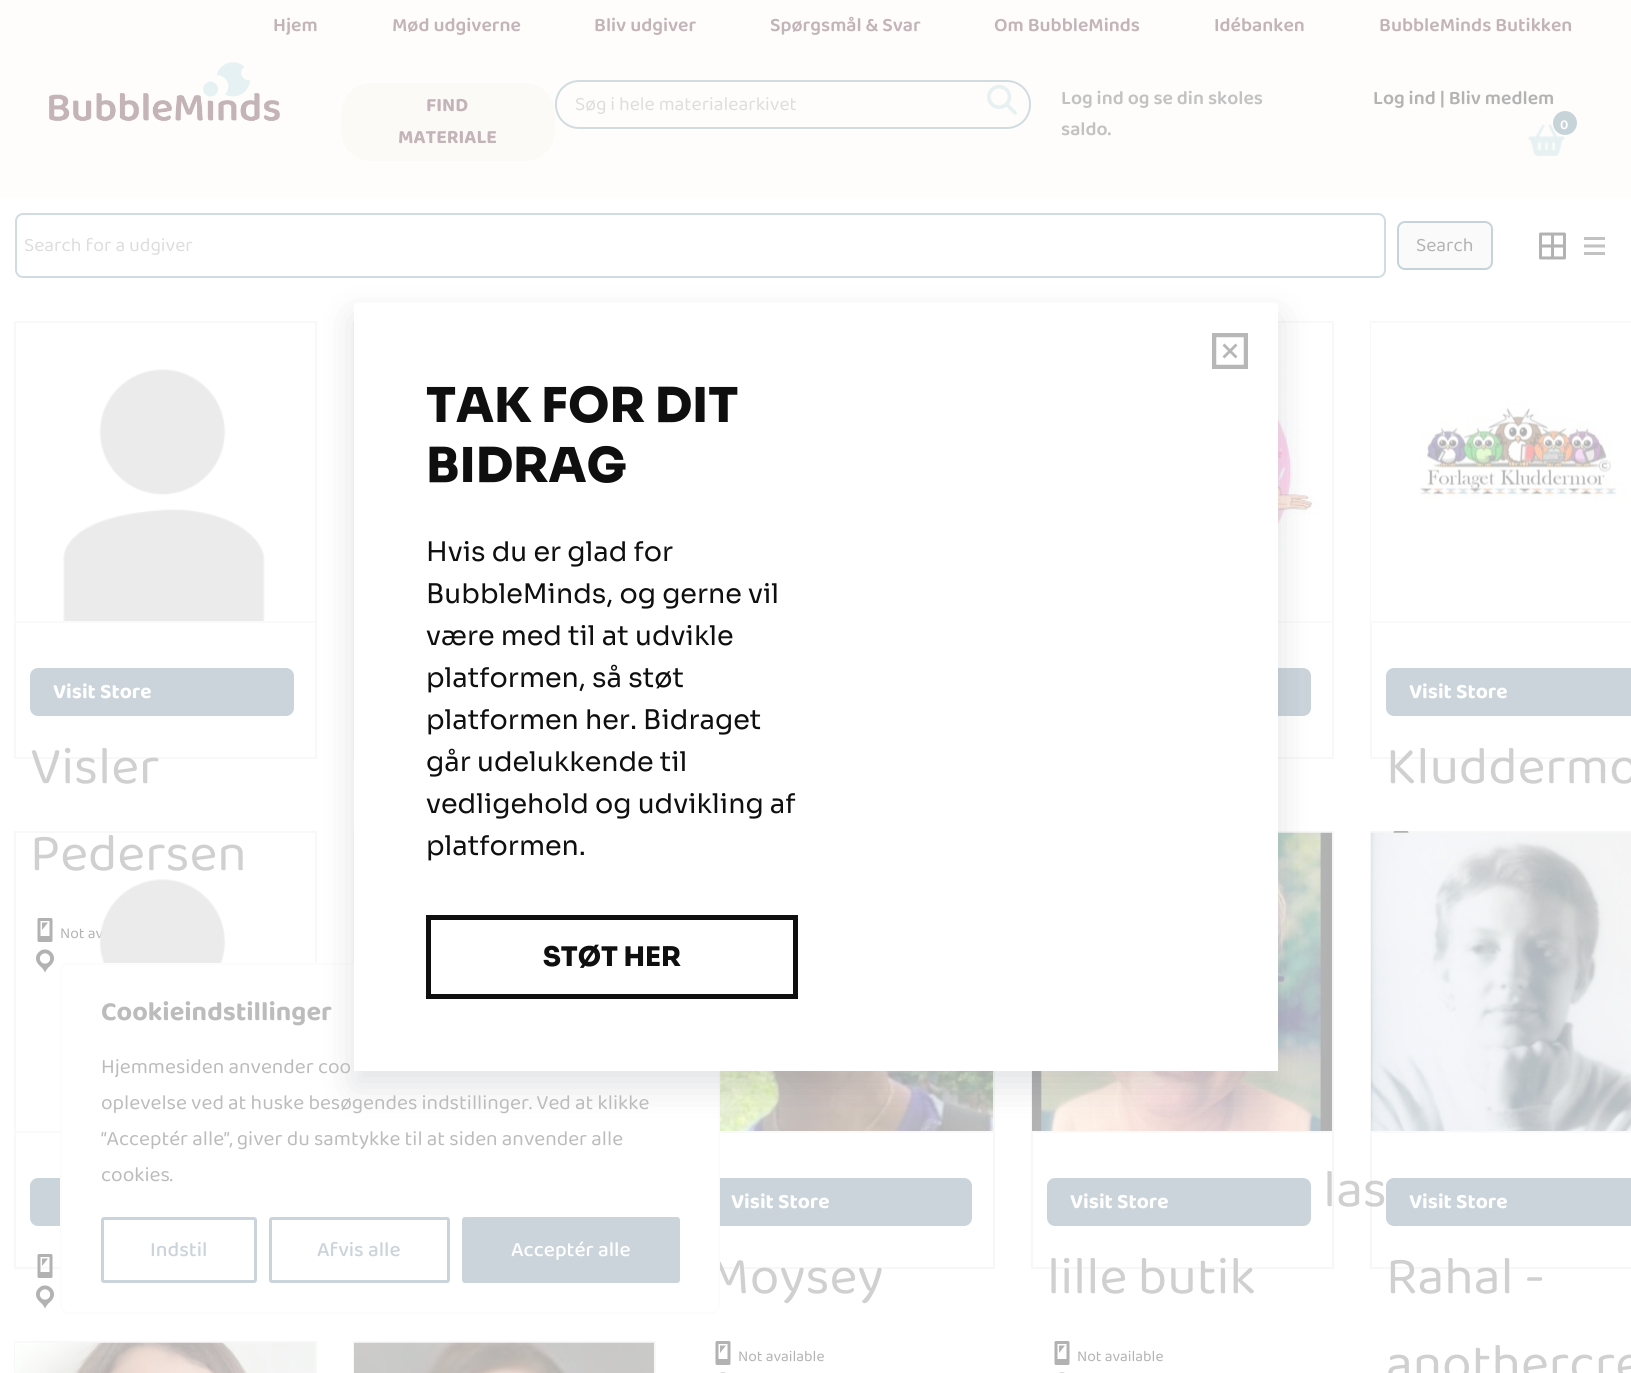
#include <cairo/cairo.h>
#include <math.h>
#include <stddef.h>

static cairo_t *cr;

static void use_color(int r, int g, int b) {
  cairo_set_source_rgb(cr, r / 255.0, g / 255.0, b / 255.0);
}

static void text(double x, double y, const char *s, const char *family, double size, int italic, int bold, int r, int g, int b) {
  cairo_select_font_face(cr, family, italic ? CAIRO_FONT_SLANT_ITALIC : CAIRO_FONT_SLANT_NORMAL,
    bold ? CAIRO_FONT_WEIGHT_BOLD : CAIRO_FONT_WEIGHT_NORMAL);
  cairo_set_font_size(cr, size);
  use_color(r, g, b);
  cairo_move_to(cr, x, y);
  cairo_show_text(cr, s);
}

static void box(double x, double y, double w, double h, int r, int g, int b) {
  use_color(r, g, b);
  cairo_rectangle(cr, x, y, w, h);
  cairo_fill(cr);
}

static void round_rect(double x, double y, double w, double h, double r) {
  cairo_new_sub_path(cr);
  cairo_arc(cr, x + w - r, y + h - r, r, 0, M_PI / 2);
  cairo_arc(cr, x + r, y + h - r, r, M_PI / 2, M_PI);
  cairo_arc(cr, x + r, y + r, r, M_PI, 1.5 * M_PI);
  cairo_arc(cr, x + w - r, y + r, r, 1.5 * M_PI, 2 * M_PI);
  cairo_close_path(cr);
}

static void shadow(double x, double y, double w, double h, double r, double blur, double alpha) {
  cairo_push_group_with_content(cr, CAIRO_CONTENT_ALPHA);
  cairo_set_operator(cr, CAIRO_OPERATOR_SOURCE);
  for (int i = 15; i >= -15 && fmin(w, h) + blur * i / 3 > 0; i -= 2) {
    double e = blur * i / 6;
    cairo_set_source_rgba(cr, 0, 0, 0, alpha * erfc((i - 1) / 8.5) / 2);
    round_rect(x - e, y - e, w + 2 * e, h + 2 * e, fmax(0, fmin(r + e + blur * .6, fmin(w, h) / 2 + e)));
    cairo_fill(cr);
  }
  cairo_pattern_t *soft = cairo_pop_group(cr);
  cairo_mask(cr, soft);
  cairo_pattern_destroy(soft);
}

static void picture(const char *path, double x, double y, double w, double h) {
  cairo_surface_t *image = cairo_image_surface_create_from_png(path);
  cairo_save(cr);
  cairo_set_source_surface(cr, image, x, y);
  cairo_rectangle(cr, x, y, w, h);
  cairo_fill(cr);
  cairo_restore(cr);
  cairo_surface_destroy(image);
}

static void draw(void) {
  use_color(255, 255, 255);
  cairo_paint(cr);
  box(0, 0, 1631, 198, 254, 253, 252);
  picture("img_01.png", 49, 62, 231, 60);
  use_color(252, 250, 247);
  round_rect(341, 83, 214, 78, 30);
  cairo_fill(cr);
  round_rect(556, 81, 474, 47, 23);
  use_color(209, 220, 225);
  cairo_stroke(cr);
  picture("img_02.png", 987, 84, 30, 31);
  picture("img_03.png", 1528, 124, 37, 32);
  use_color(198, 212, 218);
  cairo_arc(cr, 1565, 123, 12, 0, 2 * M_PI);
  cairo_fill(cr);
  round_rect(16, 214, 1369, 63, 7);
  use_color(209, 220, 226);
  cairo_stroke(cr);
  use_color(250, 250, 250);
  round_rect(1398, 222, 94, 47, 7);
  cairo_fill_preserve(cr);
  use_color(198, 212, 218);
  cairo_stroke(cr);
  picture("img_04.png", 1539, 232, 27, 28);
  picture("img_05.png", 1584, 236, 21, 20);
  cairo_rectangle(cr, 354, 322, 301, 436);
  use_color(248, 248, 248);
  cairo_stroke(cr);
  cairo_rectangle(cr, 1032, 322, 301, 436);
  cairo_stroke(cr);
  box(1278, 621, 54, 2, 250, 250, 250);
  picture("img_06.png", 1278, 322, 54, 299);
  use_color(203, 212, 219);
  round_rect(1047, 668, 264, 48, 8);
  cairo_fill(cr);
  cairo_rectangle(cr, 15, 322, 301, 436);
  use_color(248, 248, 248);
  cairo_stroke(cr);
  box(15, 621, 300, 2, 250, 250, 250);
  picture("img_07.png", 63, 369, 202, 252);
  use_color(203, 212, 219);
  round_rect(30, 668, 264, 48, 8);
  cairo_fill(cr);
  picture("img_08.png", 37, 918, 16, 24);
  picture("img_09.png", 36, 949, 18, 24);
  cairo_rectangle(cr, 1371, 322, 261, 436);
  use_color(248, 248, 248);
  cairo_stroke(cr);
  box(1371, 621, 260, 2, 250, 250, 250);
  picture("img_10.png", 1371, 322, 260, 299);
  use_color(203, 212, 219);
  round_rect(1386, 668, 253, 48, 8);
  cairo_fill(cr);
  picture("img_11.png", 1393, 831, 16, 2);
  cairo_rectangle(cr, 15, 832, 301, 436);
  use_color(248, 248, 248);
  cairo_stroke(cr);
  box(15, 1131, 45, 2, 250, 250, 250);
  use_color(203, 212, 219);
  round_rect(30, 1178, 264, 48, 8);
  cairo_fill(cr);
  picture("img_13.png", 37, 1254, 16, 24);
  picture("img_09.png", 36, 1285, 18, 24);
  cairo_rectangle(cr, 354, 832, 301, 436);
  cairo_set_source_rgba(cr, 0.702, 0.702, 0.702, 0.1);
  cairo_stroke(cr);
  cairo_rectangle(cr, 693, 832, 301, 436);
  cairo_stroke(cr);
  box(720, 1131, 273, 2, 250, 250, 250);
  picture("img_14.png", 720, 1071, 273, 60);
  use_color(203, 212, 219);
  round_rect(708, 1178, 264, 48, 8);
  cairo_fill(cr);
  picture("img_08.png", 715, 1341, 16, 24);
  picture("img_15.png", 720, 1372, 6, 1);
  cairo_rectangle(cr, 1032, 832, 301, 436);
  cairo_set_source_rgba(cr, 0.702, 0.702, 0.702, 0.1);
  cairo_stroke(cr);
  box(1032, 1131, 300, 2, 250, 250, 250);
  picture("img_16.png", 1032, 832, 300, 299);
  use_color(203, 212, 219);
  round_rect(1047, 1178, 264, 48, 8);
  cairo_fill(cr);
  picture("img_08.png", 1054, 1341, 16, 24);
  picture("img_15.png", 1059, 1372, 6, 1);
  cairo_rectangle(cr, 15, 1342, 301, 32);
  use_color(248, 248, 248);
  cairo_stroke(cr);
  picture("img_18.png", 15, 1342, 300, 31);
  cairo_rectangle(cr, 354, 1342, 301, 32);
  cairo_stroke(cr);
  picture("img_19.png", 354, 1342, 300, 31);
  text(273, 31, "Hjem", "Baloo 2 SemiBold", 19.5, 0, 0, 194, 180, 184);
  text(392, 31, "Mød udgiverne", "Baloo 2 SemiBold", 19.5, 0, 0, 194, 180, 184);
  text(594, 31, "Bliv udgiver", "Baloo 2 SemiBold", 19.5, 0, 0, 194, 180, 184);
  text(770, 31, "Spørgsmål & Svar", "Baloo 2 SemiBold", 19.5, 0, 0, 194, 180, 184);
  text(994, 31, "Om BubbleMinds", "Baloo 2 SemiBold", 19.5, 0, 0, 194, 180, 184);
  text(1214, 31, "Idébanken", "Baloo 2 SemiBold", 19.5, 0, 0, 194, 180, 184);
  text(1379, 31, "BubbleMinds Butikken", "Baloo 2 SemiBold", 19.5, 0, 0, 194, 180, 184);
  text(426, 111, "FIND", "Baloo 2", 19.5, 0, 1, 194, 180, 184);
  text(398, 143, "MATERIALE", "Baloo 2", 19.5, 0, 1, 194, 180, 184);
  text(575, 110, "Søg i hele materialearkivet", "Baloo 2", 19.5, 0, 0, 222, 221, 221);
  text(1061, 104, "Log ind og se din skoles", "Baloo 2 SemiBold", 19.5, 0, 0, 194, 194, 194);
  text(1061, 135, "saldo.", "Baloo 2 SemiBold", 19.5, 0, 0, 194, 194, 194);
  text(1373, 104, "Log ind | Bliv medlem", "Baloo 2 SemiBold", 19.5, 0, 0, 179, 179, 179);
  text(1560, 129, "0", "Baloo 2 SemiBold", 14, 0, 0, 255, 255, 255);
  text(24, 251, "Search for a udgiver", "Baloo 2", 19.5, 0, 0, 222, 221, 221);
  text(1416, 251, "Search", "Baloo 2", 19.5, 0, 0, 179, 179, 179);
  text(53, 698, "Visit Store", "Baloo 2", 21, 0, 1, 255, 255, 255);
  text(30, 783, "Visler", "Baloo 2", 53.5, 0, 0, 208, 208, 208);
  text(30, 870, "Pedersen", "Baloo 2", 53.5, 0, 0, 208, 208, 208);
  text(60, 938, "Not av", "Baloo 2", 15.5, 0, 0, 179, 179, 179);
  text(1409, 698, "Visit Store", "Baloo 2", 21, 0, 1, 255, 255, 255);
  text(1386, 783, "Kluddermo", "Baloo 2", 53.5, 0, 0, 208, 208, 208);
  picture("img_12.png", 99, 879, 127, 84);
  text(731, 1208, "Visit Store", "Baloo 2", 21, 0, 1, 255, 255, 255);
  text(708, 1293, "Moysey", "Baloo 2", 53.5, 0, 0, 208, 208, 208);
  text(738, 1361, "Not available", "Baloo 2", 15.5, 0, 0, 179, 179, 179);
  text(1323, 1206, "las", "Baloo 2", 53.5, 0, 0, 208, 208, 208);
  text(1047, 1293, "lille butik", "Baloo 2", 53.5, 0, 0, 208, 208, 208);
  text(1070, 1208, "Visit Store", "Baloo 2", 21, 0, 1, 255, 255, 255);
  text(1077, 1361, "Not available", "Baloo 2", 15.5, 0, 0, 179, 179, 179);
  cairo_rectangle(cr, 1371, 832, 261, 436);
  cairo_set_source_rgba(cr, 0.702, 0.702, 0.702, 0.1);
  cairo_stroke(cr);
  box(1371, 1131, 260, 2, 250, 250, 250);
  picture("img_17.png", 1371, 832, 260, 299);
  use_color(203, 212, 219);
  round_rect(1386, 1178, 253, 48, 8);
  cairo_fill(cr);
  text(1409, 1208, "Visit Store", "Baloo 2", 21, 0, 1, 255, 255, 255);
  text(1386, 1293, "Rahal -", "Baloo 2", 53.5, 0, 0, 208, 208, 208);
  text(1386, 1380, "anothercre", "Baloo 2", 53.5, 0, 0, 208, 208, 208);
  use_color(255, 255, 255);
  round_rect(61, 964, 658, 349, 8);
  cairo_fill_preserve(cr);
  use_color(252, 252, 252);
  cairo_stroke(cr);
  use_color(54, 61, 77);
  shadow(354, 318, 924, 768, 0, 18, 0.15);
  box(354, 303, 924, 768, 255, 255, 255);
  cairo_save(cr);
  cairo_rectangle(cr, 1212, 333, 36, 36);
  cairo_clip(cr);
  cairo_new_path(cr);
  cairo_move_to(cr, 1246, 335);
  cairo_line_to(cr, 1246, 367);
  cairo_line_to(cr, 1214, 367);
  cairo_line_to(cr, 1214, 335);
  cairo_close_path(cr);
  use_color(183, 183, 183);
  cairo_set_line_width(cr, 4.5);
  cairo_stroke(cr);
  cairo_restore(cr);
  use_color(183, 183, 183);
  cairo_new_path(cr);
  cairo_move_to(cr, 1237.5, 345.5);
  cairo_line_to(cr, 1235.5, 343.5);
  cairo_line_to(cr, 1230, 349);
  cairo_line_to(cr, 1224.5, 343.5);
  cairo_line_to(cr, 1222.5, 345.5);
  cairo_line_to(cr, 1228, 351);
  cairo_line_to(cr, 1222.5, 356.5);
  cairo_line_to(cr, 1224.5, 358.5);
  cairo_line_to(cr, 1230, 353);
  cairo_line_to(cr, 1235.5, 358.5);
  cairo_line_to(cr, 1237.5, 356.5);
  cairo_line_to(cr, 1232, 351);
  cairo_close_path(cr);
  cairo_fill(cr);
  cairo_rectangle(cr, 428.5, 917.5, 367, 79);
  use_color(15, 15, 15);
  cairo_set_line_width(cr, 5);
  cairo_stroke(cr);
  text(543, 966, "STØT HER", "Sora ExtraBold", 27, 0, 0, 15, 15, 15);
  text(426, 855, "platformen.", "Sora", 27, 0, 0, 15, 15, 15);
  text(426, 813, "vedligehold og udvikling af", "Sora", 27, 0, 0, 15, 15, 15);
  text(426, 771, "går udelukkende til", "Sora", 27, 0, 0, 15, 15, 15);
  text(426, 729, "platformen her. Bidraget", "Sora", 27, 0, 0, 15, 15, 15);
  text(426, 687, "platformen, så støt", "Sora", 27, 0, 0, 15, 15, 15);
  text(426, 645, "være med til at udvikle", "Sora", 27, 0, 0, 15, 15, 15);
  text(426, 603, "BubbleMinds, og gerne vil", "Sora", 27, 0, 0, 15, 15, 15);
  text(426, 561, "Hvis du er glad for", "Sora", 27, 0, 0, 15, 15, 15);
  text(426, 482, "BIDRAG", "Sora ExtraBold", 48, 0, 0, 15, 15, 15);
  text(426, 422, "TAK FOR DIT", "Sora ExtraBold", 48, 0, 0, 15, 15, 15);
  text(101, 1020, "Cookieindstillinger", "Baloo 2", 27, 0, 1, 188, 188, 188);
  text(101, 1073, "Hjemmesiden anvender coo", "Baloo 2", 21, 0, 0, 188, 188, 188);
  text(101, 1109, "oplevelse ved at huske besøgendes indstillinger. Ved at klikke", "Baloo 2", 21, 0, 0, 188, 188, 188);
  text(101, 1145, "“Acceptér alle”, giver du samtykke til at siden anvender alle", "Baloo 2", 21, 0, 0, 188, 188, 188);
  text(101, 1181, "cookies.", "Baloo 2", 21, 0, 0, 188, 188, 188);
  round_rect(102.5, 1218.5, 153, 63, 1.5);
  use_color(203, 212, 219);
  cairo_set_line_width(cr, 3);
  cairo_stroke(cr);
  text(150, 1256, "Indstil", "Baloo 2 Medium", 21, 0, 0, 203, 212, 219);
  round_rect(270.5, 1218.5, 178, 63, 1.5);
  cairo_stroke(cr);
  text(317, 1256, "Afvis alle", "Baloo 2 Medium", 21, 0, 0, 203, 212, 219);
  round_rect(463.5, 1218.5, 215, 63, 1.5);
  cairo_fill_preserve(cr);
  cairo_stroke(cr);
  text(511, 1256, "Acceptér alle", "Baloo 2 Medium", 21, 0, 0, 255, 255, 255);
}

int main(void) {
  cairo_surface_t *surface = cairo_image_surface_create(CAIRO_FORMAT_RGB24, 1631, 1373);
  cr = cairo_create(surface);
  cairo_font_options_t *options = cairo_font_options_create();
  cairo_font_options_set_hint_metrics(options, CAIRO_HINT_METRICS_OFF);
  cairo_font_options_set_hint_style(options, CAIRO_HINT_STYLE_NONE);
  cairo_set_font_options(cr, options);
  cairo_set_miter_limit(cr, 4);
  draw();
  cairo_surface_write_to_png(surface, "out.png");
  cairo_font_options_destroy(options);
  cairo_destroy(cr);
  cairo_surface_destroy(surface);
  return 0;
}
